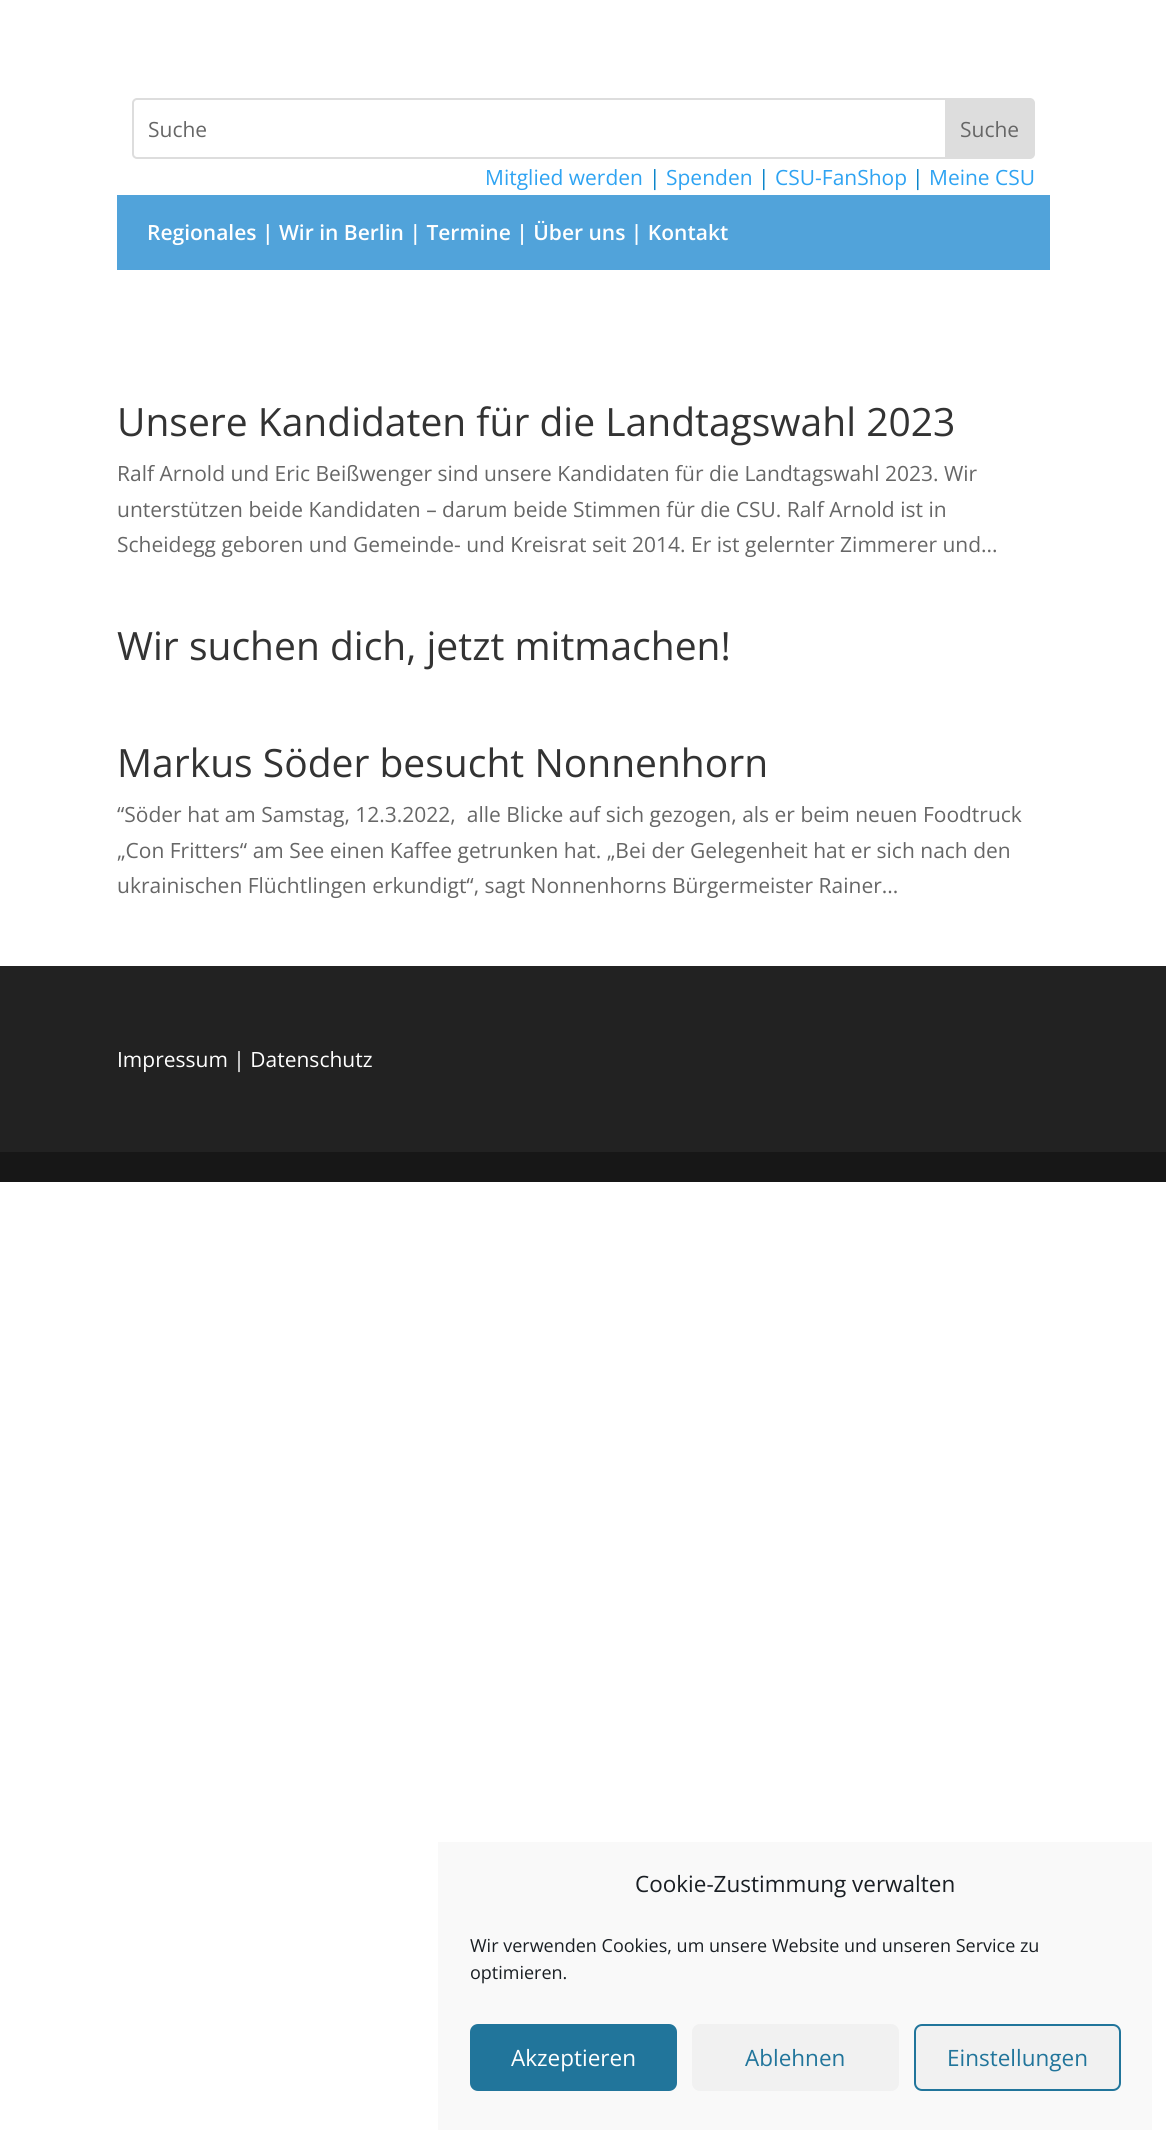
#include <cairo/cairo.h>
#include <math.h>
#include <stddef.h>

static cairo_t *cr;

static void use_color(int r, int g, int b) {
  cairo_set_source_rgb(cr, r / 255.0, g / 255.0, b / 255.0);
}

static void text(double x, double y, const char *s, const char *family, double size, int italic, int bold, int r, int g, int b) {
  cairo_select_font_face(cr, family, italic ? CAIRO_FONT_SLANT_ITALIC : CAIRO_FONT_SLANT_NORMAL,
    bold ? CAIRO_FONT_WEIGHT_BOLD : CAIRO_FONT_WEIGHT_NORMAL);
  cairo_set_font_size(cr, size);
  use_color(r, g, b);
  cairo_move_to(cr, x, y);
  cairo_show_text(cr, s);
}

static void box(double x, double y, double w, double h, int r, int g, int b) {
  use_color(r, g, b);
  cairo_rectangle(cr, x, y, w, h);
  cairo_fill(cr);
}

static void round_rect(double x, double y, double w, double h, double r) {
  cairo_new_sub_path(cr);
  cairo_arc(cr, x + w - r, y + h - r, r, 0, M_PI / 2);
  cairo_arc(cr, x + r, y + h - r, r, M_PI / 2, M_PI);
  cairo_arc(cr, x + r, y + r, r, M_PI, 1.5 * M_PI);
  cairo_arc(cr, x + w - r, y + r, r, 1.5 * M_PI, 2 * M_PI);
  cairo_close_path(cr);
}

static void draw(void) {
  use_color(255, 255, 255);
  cairo_paint(cr);
  round_rect(133, 99, 901, 59, 4);
  use_color(221, 221, 221);
  cairo_stroke(cr);
  cairo_new_path(cr);
  cairo_move_to(cr, 945, 99);
  cairo_line_to(cr, 1031, 99);
  cairo_curve_to(cr, 1032.5, 99, 1034, 100.5, 1034, 102);
  cairo_line_to(cr, 1034, 155);
  cairo_curve_to(cr, 1034, 156.5, 1032.5, 158, 1031, 158);
  cairo_line_to(cr, 945, 158);
  cairo_close_path(cr);
  cairo_fill(cr);
  box(117, 195, 933, 75, 81, 163, 218);
  box(0, 966, 1166, 186, 34, 34, 34);
  box(0, 1152, 1166, 30, 23, 23, 23);
  box(438, 1842, 714, 288, 249, 249, 249);
  use_color(33, 117, 155);
  round_rect(471, 2025, 205, 65, 7);
  cairo_fill_preserve(cr);
  cairo_stroke(cr);
  use_color(241, 241, 241);
  round_rect(692, 2024, 207, 67, 8);
  cairo_fill(cr);
  round_rect(915, 2025, 205, 65, 7);
  cairo_fill_preserve(cr);
  use_color(33, 117, 155);
  cairo_stroke(cr);
  text(148, 137, "Suche", "Open Sans", 21, 0, 0, 102, 102, 102);
  text(960, 137, "Suche", "Open Sans", 21, 0, 0, 102, 102, 102);
  text(485, 185, "Mitglied werden", "Open Sans", 21, 0, 0, 46, 163, 242);
  text(649, 185, "|", "Open Sans", 21, 0, 0, 0, 128, 200);
  text(666, 185, "Spenden", "Open Sans", 21, 0, 0, 46, 163, 242);
  text(758, 185, "|", "Open Sans", 21, 0, 0, 0, 128, 200);
  text(775, 185, "CSU-FanShop", "Open Sans", 21, 0, 0, 46, 163, 242);
  text(912, 185, "|", "Open Sans", 21, 0, 0, 0, 128, 200);
  text(929, 185, "Meine CSU", "Open Sans", 21, 0, 0, 46, 163, 242);
  text(147, 240, "Regionales | Wir in Berlin | Termine | Über uns | Kontakt", "Open Sans SemiBold", 21, 0, 0, 255, 255, 255);
  text(117, 436, "Unsere Kandidaten für die Landtagswahl 2023", "Open Sans", 39, 0, 0, 51, 51, 51);
  text(117, 481, "Ralf Arnold und Eric Beißwenger sind unsere Kandidaten für die Landtagswahl 2023. Wir", "Open Sans", 21, 0, 0, 102, 102, 102);
  text(117, 517, "unterstützen beide Kandidaten – darum beide Stimmen für die CSU. Ralf Arnold ist in", "Open Sans", 21, 0, 0, 102, 102, 102);
  text(117, 552, "Scheidegg geboren und Gemeinde- und Kreisrat seit 2014. Er ist gelernter Zimmerer und...", "Open Sans", 21, 0, 0, 102, 102, 102);
  text(117, 660, "Wir suchen dich, jetzt mitmachen!", "Open Sans", 39, 0, 0, 51, 51, 51);
  text(117, 777, "Markus Söder besucht Nonnenhorn", "Open Sans", 39, 0, 0, 51, 51, 51);
  text(117, 822, "“Söder hat am Samstag, 12.3.2022,  alle Blicke auf sich gezogen, als er beim neuen Foodtruck", "Open Sans", 21, 0, 0, 102, 102, 102);
  text(117, 858, "„Con Fritters“ am See einen Kaffee getrunken hat. „Bei der Gelegenheit hat er sich nach den", "Open Sans", 21, 0, 0, 102, 102, 102);
  text(117, 893, "ukrainischen Flüchtlingen erkundigt“, sagt Nonnenhorns Bürgermeister Rainer...", "Open Sans", 21, 0, 0, 102, 102, 102);
  text(117, 1067, "Impressum | Datenschutz", "Open Sans", 21, 0, 0, 255, 255, 255);
  text(635, 1892, "Cookie-Zustimmung verwalten", "Open Sans", 22.5, 0, 0, 25, 30, 35);
  text(470, 1952, "Wir verwenden Cookies, um unsere Website und unseren Service zu", "Open Sans", 18, 0, 0, 25, 30, 35);
  text(470, 1979, "optimieren.", "Open Sans", 18, 0, 0, 25, 30, 35);
  text(511, 2066, "Akzeptieren", "Open Sans", 22.5, 0, 0, 255, 255, 255);
  text(745, 2066, "Ablehnen", "Open Sans", 22.5, 0, 0, 33, 117, 155);
  text(947, 2066, "Einstellungen", "Open Sans", 22.5, 0, 0, 33, 117, 155);
}

int main(void) {
  cairo_surface_t *surface = cairo_image_surface_create(CAIRO_FORMAT_RGB24, 1166, 2145);
  cr = cairo_create(surface);
  cairo_font_options_t *options = cairo_font_options_create();
  cairo_font_options_set_hint_metrics(options, CAIRO_HINT_METRICS_OFF);
  cairo_font_options_set_hint_style(options, CAIRO_HINT_STYLE_NONE);
  cairo_set_font_options(cr, options);
  cairo_set_miter_limit(cr, 4);
  draw();
  cairo_surface_write_to_png(surface, "out.png");
  cairo_font_options_destroy(options);
  cairo_destroy(cr);
  cairo_surface_destroy(surface);
  return 0;
}
